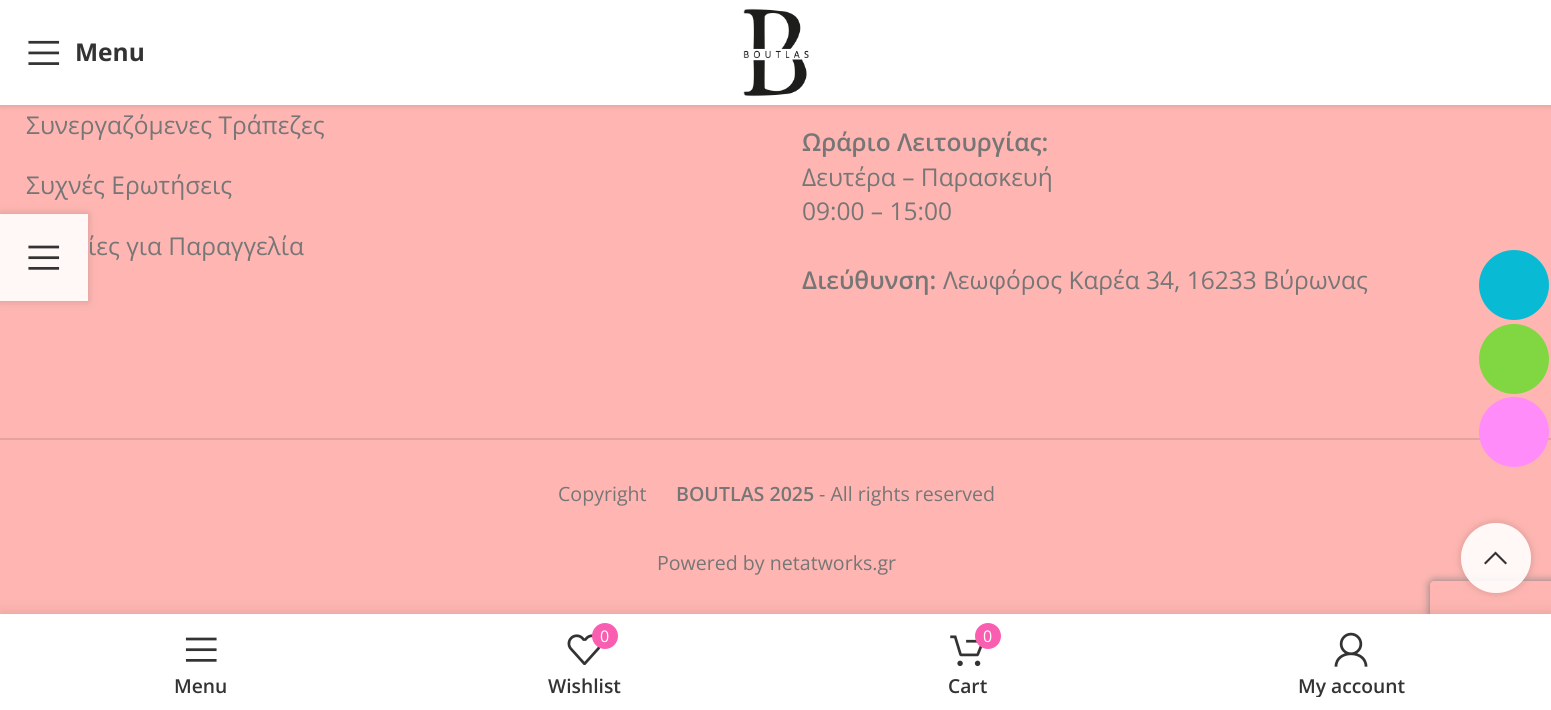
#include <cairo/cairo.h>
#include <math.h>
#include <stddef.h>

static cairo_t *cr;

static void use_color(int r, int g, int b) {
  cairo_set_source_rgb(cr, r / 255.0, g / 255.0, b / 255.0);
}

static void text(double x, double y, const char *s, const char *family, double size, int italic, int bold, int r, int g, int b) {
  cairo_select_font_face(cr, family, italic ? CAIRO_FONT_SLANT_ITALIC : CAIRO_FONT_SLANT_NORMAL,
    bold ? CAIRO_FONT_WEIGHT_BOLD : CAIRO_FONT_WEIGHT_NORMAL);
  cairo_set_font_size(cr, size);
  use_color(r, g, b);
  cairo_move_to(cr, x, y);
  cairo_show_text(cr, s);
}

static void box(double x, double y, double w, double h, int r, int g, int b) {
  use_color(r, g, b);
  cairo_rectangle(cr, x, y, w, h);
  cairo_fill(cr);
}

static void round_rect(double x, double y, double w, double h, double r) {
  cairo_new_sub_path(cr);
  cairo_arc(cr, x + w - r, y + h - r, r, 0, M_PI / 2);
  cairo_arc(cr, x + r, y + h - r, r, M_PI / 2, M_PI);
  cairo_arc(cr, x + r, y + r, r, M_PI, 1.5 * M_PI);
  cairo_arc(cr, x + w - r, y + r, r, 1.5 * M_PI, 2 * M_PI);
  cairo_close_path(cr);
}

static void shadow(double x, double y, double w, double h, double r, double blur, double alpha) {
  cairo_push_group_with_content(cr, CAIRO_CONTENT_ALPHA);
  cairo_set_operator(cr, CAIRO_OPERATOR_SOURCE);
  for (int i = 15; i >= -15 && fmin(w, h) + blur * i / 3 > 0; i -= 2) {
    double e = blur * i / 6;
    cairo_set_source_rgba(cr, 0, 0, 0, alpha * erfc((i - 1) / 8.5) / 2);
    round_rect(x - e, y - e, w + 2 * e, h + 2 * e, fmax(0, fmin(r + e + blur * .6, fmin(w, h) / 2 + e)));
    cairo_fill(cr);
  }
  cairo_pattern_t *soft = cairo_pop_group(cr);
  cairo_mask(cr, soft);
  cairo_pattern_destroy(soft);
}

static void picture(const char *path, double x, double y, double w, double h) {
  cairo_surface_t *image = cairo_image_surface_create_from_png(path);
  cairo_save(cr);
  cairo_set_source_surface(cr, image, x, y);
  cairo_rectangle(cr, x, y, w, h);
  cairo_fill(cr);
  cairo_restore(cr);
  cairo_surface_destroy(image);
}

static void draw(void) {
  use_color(255, 182, 178);
  cairo_paint(cr);
  use_color(0, 0, 0);
  shadow(0, 2, 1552, 105, 0, 2.5, 0.1);
  box(0, 0, 1551, 105, 255, 255, 255);
  picture("img_01.png", 28, 40, 32, 25);
  picture("img_02.png", 743, 8, 66, 89);
  box(0, 438, 1551, 2, 228, 163, 159);
  cairo_save(cr);
  cairo_set_fill_rule(cr, CAIRO_FILL_RULE_EVEN_ODD);
  cairo_new_path(cr);
  cairo_move_to(cr, 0, 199);
  cairo_line_to(cr, 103, 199);
  cairo_line_to(cr, 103, 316);
  cairo_line_to(cr, 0, 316);
  cairo_close_path(cr);
  cairo_move_to(cr, 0, 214);
  cairo_line_to(cr, 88, 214);
  cairo_line_to(cr, 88, 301);
  cairo_line_to(cr, 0, 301);
  cairo_close_path(cr);
  cairo_clip(cr);
  use_color(0, 0, 0);
  shadow(0, 214, 88, 87, 0, 4.5, 0.17);
  cairo_restore(cr);
  cairo_set_source_rgba(cr, 1, 1, 1, 0.9);
  cairo_rectangle(cr, 0, 214, 88, 87);
  cairo_fill(cr);
  picture("img_03.png", 28, 245, 32, 25);
  use_color(9, 186, 212);
  cairo_arc(cr, 1514, 285, 35, 0, 2 * M_PI);
  cairo_fill(cr);
  use_color(129, 215, 66);
  cairo_arc(cr, 1514, 359, 35, 0, 2 * M_PI);
  cairo_fill(cr);
  use_color(255, 140, 249);
  cairo_arc(cr, 1514, 432, 35, 0, 2 * M_PI);
  cairo_fill(cr);
  cairo_save(cr);
  cairo_set_fill_rule(cr, CAIRO_FILL_RULE_EVEN_ODD);
  cairo_new_path(cr);
  cairo_move_to(cr, 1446, 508);
  cairo_line_to(cr, 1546, 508);
  cairo_line_to(cr, 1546, 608);
  cairo_line_to(cr, 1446, 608);
  cairo_close_path(cr);
  cairo_move_to(cr, 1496, 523);
  cairo_curve_to(cr, 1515.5, 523, 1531, 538.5, 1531, 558);
  cairo_curve_to(cr, 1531, 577.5, 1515.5, 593, 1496, 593);
  cairo_curve_to(cr, 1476.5, 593, 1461, 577.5, 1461, 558);
  cairo_curve_to(cr, 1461, 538.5, 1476.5, 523, 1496, 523);
  cairo_close_path(cr);
  cairo_clip(cr);
  use_color(0, 0, 0);
  shadow(1461, 523, 70, 70, 35, 4.5, 0.17);
  cairo_restore(cr);
  cairo_save(cr);
  cairo_set_fill_rule(cr, CAIRO_FILL_RULE_EVEN_ODD);
  cairo_new_path(cr);
  cairo_move_to(cr, 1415, 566);
  cairo_line_to(cr, 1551, 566);
  cairo_line_to(cr, 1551, 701);
  cairo_line_to(cr, 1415, 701);
  cairo_close_path(cr);
  cairo_move_to(cr, 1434, 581);
  cairo_line_to(cr, 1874, 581);
  cairo_curve_to(cr, 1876, 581, 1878, 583, 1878, 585);
  cairo_line_to(cr, 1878, 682);
  cairo_curve_to(cr, 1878, 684, 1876, 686, 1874, 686);
  cairo_line_to(cr, 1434, 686);
  cairo_curve_to(cr, 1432, 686, 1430, 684, 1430, 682);
  cairo_line_to(cr, 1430, 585);
  cairo_curve_to(cr, 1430, 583, 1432, 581, 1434, 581);
  cairo_close_path(cr);
  cairo_clip(cr);
  use_color(128, 128, 128);
  shadow(1430, 581, 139, 105, 4, 4.5, 1);
  cairo_restore(cr);
  cairo_set_source_rgba(cr, 1, 1, 1, 0.9);
  cairo_arc(cr, 1496, 558, 35, 0, 2 * M_PI);
  cairo_fill(cr);
  use_color(51, 51, 51);
  cairo_new_path(cr);
  cairo_move_to(cr, 1505.5, 564.5);
  cairo_line_to(cr, 1507, 563);
  cairo_line_to(cr, 1495.5, 551.5);
  cairo_line_to(cr, 1484, 563);
  cairo_line_to(cr, 1485.5, 564.5);
  cairo_line_to(cr, 1495.5, 554.5);
  cairo_close_path(cr);
  cairo_fill(cr);
  use_color(0, 0, 0);
  shadow(0, 614, 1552, 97, 0, 8, 0.12);
  box(0, 614, 1551, 96, 255, 255, 255);
  picture("img_04.png", 185, 637, 32, 25);
  picture("img_05.png", 567, 634, 34, 31);
  use_color(249, 94, 177);
  cairo_arc(cr, 605, 636, 13, 0, 2 * M_PI);
  cairo_fill(cr);
  picture("img_06.png", 950, 635, 33, 32);
  cairo_arc(cr, 988, 636, 13, 0, 2 * M_PI);
  cairo_fill(cr);
  picture("img_07.png", 1334, 632, 34, 35);
  text(75, 61, "Menu", "Open Sans", 24.5, 0, 1, 51, 51, 51);
  text(26, 134, "Συνεργαζόμενες Τράπεζες", "Open Sans", 24.5, 0, 0, 118, 118, 118);
  text(26, 194, "Συχνές Ερωτήσεις", "Open Sans", 24.5, 0, 0, 118, 118, 118);
  text(88, 255, "ίες για Παραγγελία", "Open Sans", 24.5, 0, 0, 118, 118, 118);
  text(802, 151, "Ωράριο Λειτουργίας:", "Open Sans SemiBold", 24.5, 0, 0, 118, 118, 118);
  text(802, 186, "Δευτέρα – Παρασκευή", "Open Sans", 24.5, 0, 0, 118, 118, 118);
  text(802, 220, "09:00 – 15:00", "Open Sans", 24.5, 0, 0, 118, 118, 118);
  text(802, 289, "Διεύθυνση:", "Open Sans SemiBold", 24.5, 0, 0, 118, 118, 118);
  text(943, 289, "Λεωφόρος Καρέα 34, 16233 Βύρωνας", "Open Sans", 24.5, 0, 0, 118, 118, 118);
  text(558, 501, "Copyright", "Open Sans", 19.6, 0, 0, 118, 118, 118);
  text(676, 501, "BOUTLAS 2025", "Open Sans SemiBold", 19.6, 0, 0, 118, 118, 118);
  text(819, 501, "- All rights reserved", "Open Sans", 19.6, 0, 0, 118, 118, 118);
  text(657, 570, "Powered by netatworks.gr", "Open Sans", 19.6, 0, 0, 118, 118, 118);
  text(174, 693, "Menu", "Open Sans SemiBold", 19.25, 0, 0, 51, 51, 51);
  text(600, 642, "0", "Open Sans", 16, 0, 0, 255, 255, 255);
  text(548, 693, "Wishlist", "Open Sans SemiBold", 19.25, 0, 0, 51, 51, 51);
  text(983, 642, "0", "Open Sans", 16, 0, 0, 255, 255, 255);
  text(948, 693, "Cart", "Open Sans SemiBold", 19.25, 0, 0, 51, 51, 51);
  cairo_save(cr);
  cairo_rectangle(cr, 1178, 674, 348, 23);
  cairo_clip(cr);
  text(1298, 693, "My account", "Open Sans SemiBold", 19.25, 0, 0, 51, 51, 51);
  cairo_restore(cr);
}

int main(void) {
  cairo_surface_t *surface = cairo_image_surface_create(CAIRO_FORMAT_RGB24, 1551, 710);
  cr = cairo_create(surface);
  cairo_font_options_t *options = cairo_font_options_create();
  cairo_font_options_set_hint_metrics(options, CAIRO_HINT_METRICS_OFF);
  cairo_font_options_set_hint_style(options, CAIRO_HINT_STYLE_NONE);
  cairo_set_font_options(cr, options);
  cairo_set_miter_limit(cr, 4);
  draw();
  cairo_surface_write_to_png(surface, "out.png");
  cairo_font_options_destroy(options);
  cairo_destroy(cr);
  cairo_surface_destroy(surface);
  return 0;
}
